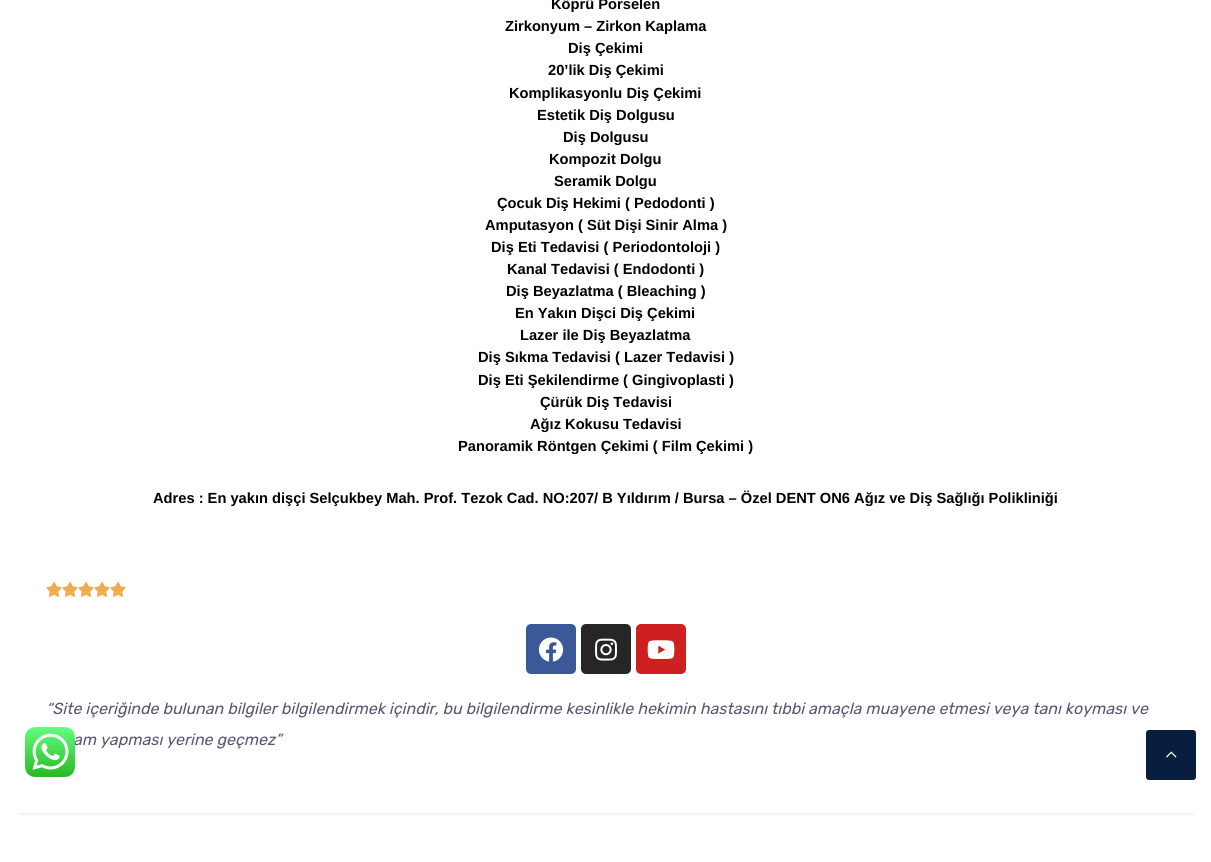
#include <cairo/cairo.h>
#include <math.h>
#include <stddef.h>

static cairo_t *cr;

static void use_color(int r, int g, int b) {
  cairo_set_source_rgb(cr, r / 255.0, g / 255.0, b / 255.0);
}

static void text(double x, double y, const char *s, const char *family, double size, int italic, int bold, int r, int g, int b) {
  cairo_select_font_face(cr, family, italic ? CAIRO_FONT_SLANT_ITALIC : CAIRO_FONT_SLANT_NORMAL,
    bold ? CAIRO_FONT_WEIGHT_BOLD : CAIRO_FONT_WEIGHT_NORMAL);
  cairo_set_font_size(cr, size);
  use_color(r, g, b);
  cairo_move_to(cr, x, y);
  cairo_show_text(cr, s);
}

static void box(double x, double y, double w, double h, int r, int g, int b) {
  use_color(r, g, b);
  cairo_rectangle(cr, x, y, w, h);
  cairo_fill(cr);
}

static void round_rect(double x, double y, double w, double h, double r) {
  cairo_new_sub_path(cr);
  cairo_arc(cr, x + w - r, y + h - r, r, 0, M_PI / 2);
  cairo_arc(cr, x + r, y + h - r, r, M_PI / 2, M_PI);
  cairo_arc(cr, x + r, y + r, r, M_PI, 1.5 * M_PI);
  cairo_arc(cr, x + w - r, y + r, r, 1.5 * M_PI, 2 * M_PI);
  cairo_close_path(cr);
}

static void picture(const char *path, double x, double y, double w, double h) {
  cairo_surface_t *image = cairo_image_surface_create_from_png(path);
  cairo_save(cr);
  cairo_set_source_surface(cr, image, x, y);
  cairo_rectangle(cr, x, y, w, h);
  cairo_fill(cr);
  cairo_restore(cr);
  cairo_surface_destroy(image);
}

static void draw(void) {
  use_color(255, 255, 255);
  cairo_paint(cr);
  box(18, 813, 1176, 2, 240, 244, 249);
  picture("img_01.png", 46, 582, 16, 15);
  picture("img_02.png", 46, 582, 16, 15);
  picture("img_01.png", 62, 582, 16, 15);
  picture("img_02.png", 62, 582, 16, 15);
  picture("img_01.png", 78, 582, 16, 15);
  picture("img_02.png", 78, 582, 16, 15);
  picture("img_01.png", 94, 582, 16, 15);
  picture("img_02.png", 94, 582, 16, 15);
  picture("img_01.png", 110, 582, 16, 15);
  picture("img_02.png", 110, 582, 16, 15);
  use_color(59, 89, 152);
  round_rect(526, 624, 50, 50, 5);
  cairo_fill(cr);
  picture("img_03.png", 538, 637, 26, 25);
  use_color(38, 38, 38);
  round_rect(581, 624, 50, 50, 5);
  cairo_fill(cr);
  picture("img_04.png", 595, 638, 22, 23);
  use_color(205, 32, 31);
  round_rect(636, 624, 50, 50, 5);
  cairo_fill(cr);
  picture("img_05.png", 647, 640, 28, 19);
  use_color(9, 29, 62);
  round_rect(1146, 730, 50, 50, 3);
  cairo_fill(cr);
  picture("img_07.png", 1166, 751, 11, 7);
  text(551, 9, "Köprü Porselen", "Liberation Sans", 14.67, 0, 1, 0, 0, 0);
  text(505, 31, "Zirkonyum – Zirkon Kaplama", "Liberation Sans", 14.67, 0, 1, 0, 0, 0);
  text(568, 53, "Diş Çekimi", "Liberation Sans", 14.67, 0, 1, 0, 0, 0);
  text(548, 75, "20’lik Diş Çekimi", "Liberation Sans", 14.67, 0, 1, 0, 0, 0);
  text(509, 98, "Komplikasyonlu Diş Çekimi", "Liberation Sans", 14.67, 0, 1, 0, 0, 0);
  text(537, 120, "Estetik Diş Dolgusu", "Liberation Sans", 14.67, 0, 1, 0, 0, 0);
  text(563, 142, "Diş Dolgusu", "Liberation Sans", 14.67, 0, 1, 0, 0, 0);
  text(549, 164, "Kompozit Dolgu", "Liberation Sans", 14.67, 0, 1, 0, 0, 0);
  text(554, 186, "Seramik Dolgu", "Liberation Sans", 14.67, 0, 1, 0, 0, 0);
  text(497, 208, "Çocuk Diş Hekimi ( Pedodonti )", "Liberation Sans", 14.67, 0, 1, 0, 0, 0);
  text(485, 230, "Amputasyon ( Süt Dişi Sinir Alma )", "Liberation Sans", 14.67, 0, 1, 0, 0, 0);
  text(491, 252, "Diş Eti Tedavisi ( Periodontoloji )", "Liberation Sans", 14.67, 0, 1, 0, 0, 0);
  text(507, 274, "Kanal Tedavisi ( Endodonti )", "Liberation Sans", 14.67, 0, 1, 0, 0, 0);
  text(506, 296, "Diş Beyazlatma ( Bleaching )", "Liberation Sans", 14.67, 0, 1, 0, 0, 0);
  text(515, 318, "En Yakın Dişci Diş Çekimi", "Liberation Sans", 14.67, 0, 1, 0, 0, 0);
  text(520, 340, "Lazer ile Diş Beyazlatma", "Liberation Sans", 14.67, 0, 1, 0, 0, 0);
  text(478, 362, "Diş Sıkma Tedavisi ( Lazer Tedavisi )", "Liberation Sans", 14.67, 0, 1, 0, 0, 0);
  text(478, 385, "Diş Eti Şekilendirme ( Gingivoplasti )", "Liberation Sans", 14.67, 0, 1, 0, 0, 0);
  text(540, 407, "Çürük Diş Tedavisi", "Liberation Sans", 14.67, 0, 1, 0, 0, 0);
  text(530, 429, "Ağız Kokusu Tedavisi", "Liberation Sans", 14.67, 0, 1, 0, 0, 0);
  text(458, 451, "Panoramik Röntgen Çekimi ( Film Çekimi )", "Liberation Sans", 14.67, 0, 1, 0, 0, 0);
  text(153, 503, "Adres : En yakın dişçi Selçukbey Mah. Prof. Tezok Cad. NO:207/ B Yıldırım / Bursa – Özel DENT ON6 Ağız ve Diş Sağlığı Polikliniği", "Liberation Sans", 14.67, 0, 1, 0, 0, 0);
  text(46, 714, "“Site içeriğinde bulunan bilgiler bilgilendirmek içindir, bu bilgilendirme kesinlikle hekimin hastasını tıbbi amaçla muayene etmesi veya tanı koyması ve", "Rubik", 16, 1, 0, 86, 88, 114);
  text(73, 745, "am yapması yerine geçmez”", "Rubik", 16, 1, 0, 86, 88, 114);
  picture("img_06.png", 25, 727, 50, 50);
}

int main(void) {
  cairo_surface_t *surface = cairo_image_surface_create(CAIRO_FORMAT_RGB24, 1211, 862);
  cr = cairo_create(surface);
  cairo_font_options_t *options = cairo_font_options_create();
  cairo_font_options_set_hint_metrics(options, CAIRO_HINT_METRICS_OFF);
  cairo_font_options_set_hint_style(options, CAIRO_HINT_STYLE_NONE);
  cairo_set_font_options(cr, options);
  cairo_set_miter_limit(cr, 4);
  draw();
  cairo_surface_write_to_png(surface, "out.png");
  cairo_font_options_destroy(options);
  cairo_destroy(cr);
  cairo_surface_destroy(surface);
  return 0;
}
